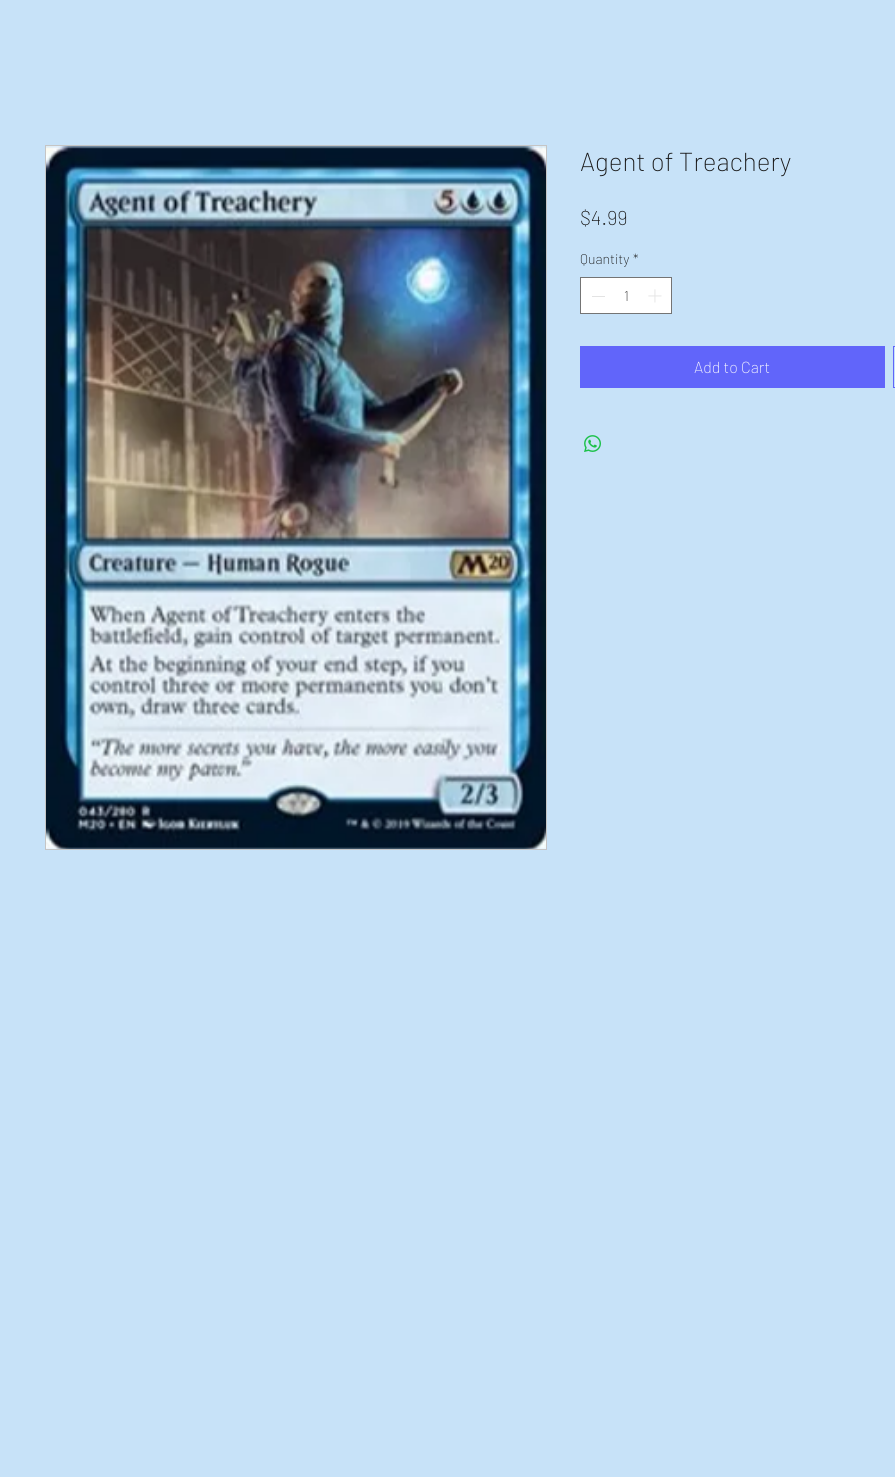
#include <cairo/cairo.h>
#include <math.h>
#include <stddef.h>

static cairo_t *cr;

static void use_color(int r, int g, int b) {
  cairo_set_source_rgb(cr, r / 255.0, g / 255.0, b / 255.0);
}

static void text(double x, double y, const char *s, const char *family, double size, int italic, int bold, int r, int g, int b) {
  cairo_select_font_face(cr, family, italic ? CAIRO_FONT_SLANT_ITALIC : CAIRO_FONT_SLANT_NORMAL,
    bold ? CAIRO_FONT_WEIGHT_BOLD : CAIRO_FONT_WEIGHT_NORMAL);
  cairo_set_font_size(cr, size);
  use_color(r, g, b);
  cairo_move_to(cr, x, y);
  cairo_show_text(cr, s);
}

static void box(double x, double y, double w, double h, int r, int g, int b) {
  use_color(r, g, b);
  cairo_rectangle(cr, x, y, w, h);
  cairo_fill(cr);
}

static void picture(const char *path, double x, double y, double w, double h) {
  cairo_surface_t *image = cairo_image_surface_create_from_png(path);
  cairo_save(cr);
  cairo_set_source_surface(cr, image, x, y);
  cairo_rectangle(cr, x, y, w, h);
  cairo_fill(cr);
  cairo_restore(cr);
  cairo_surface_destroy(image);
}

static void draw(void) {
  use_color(199, 226, 248);
  cairo_paint(cr);
  cairo_rectangle(cr, 45.5, 145.5, 501, 704);
  use_color(197, 197, 197);
  cairo_set_line_width(cr, 1);
  cairo_stroke(cr);
  picture("img_01.png", 46, 146, 500, 703);
  use_color(255, 255, 255);
  cairo_rectangle(cr, 580.5, 277.5, 91, 36);
  cairo_fill_preserve(cr);
  use_color(116, 116, 116);
  cairo_stroke(cr);
  box(592, 296, 13, 1, 227, 227, 227);
  picture("img_02.png", 648, 289, 14, 14);
  box(580, 346, 305, 42, 97, 101, 250);
  cairo_rectangle(cr, 893.5, 346.5, 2, 41);
  cairo_stroke(cr);
  picture("img_03.png", 584, 435, 17, 17);
  text(580, 171, "Agent of Treachery", "Barlow ExtraLight", 26, 0, 0, 24, 24, 24);
  text(580, 225, "$4.99", "Barlow ExtraLight", 20, 0, 0, 24, 24, 24);
  text(580, 264, "Quantity", "Barlow ExtraLight", 14, 0, 0, 24, 24, 24);
  text(633, 264, "*", "Barlow ExtraLight", 14, 0, 0, 24, 24, 24);
  text(624, 301, "1", "Barlow ExtraLight", 14, 0, 0, 24, 24, 24);
  text(694, 373, "Add to Cart", "Barlow ExtraLight", 16, 0, 0, 255, 255, 255);
}

int main(void) {
  cairo_surface_t *surface = cairo_image_surface_create(CAIRO_FORMAT_RGB24, 895, 1477);
  cr = cairo_create(surface);
  cairo_font_options_t *options = cairo_font_options_create();
  cairo_font_options_set_hint_metrics(options, CAIRO_HINT_METRICS_OFF);
  cairo_font_options_set_hint_style(options, CAIRO_HINT_STYLE_NONE);
  cairo_set_font_options(cr, options);
  cairo_set_miter_limit(cr, 4);
  draw();
  cairo_surface_write_to_png(surface, "out.png");
  cairo_font_options_destroy(options);
  cairo_destroy(cr);
  cairo_surface_destroy(surface);
  return 0;
}
